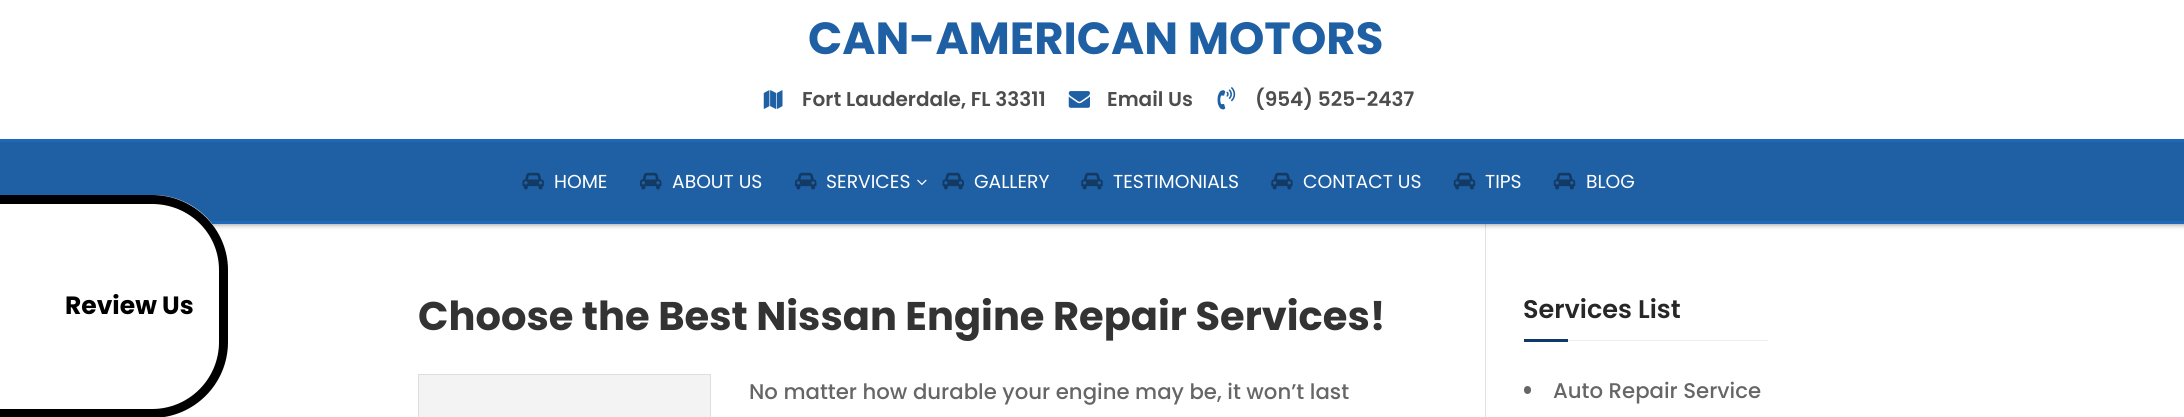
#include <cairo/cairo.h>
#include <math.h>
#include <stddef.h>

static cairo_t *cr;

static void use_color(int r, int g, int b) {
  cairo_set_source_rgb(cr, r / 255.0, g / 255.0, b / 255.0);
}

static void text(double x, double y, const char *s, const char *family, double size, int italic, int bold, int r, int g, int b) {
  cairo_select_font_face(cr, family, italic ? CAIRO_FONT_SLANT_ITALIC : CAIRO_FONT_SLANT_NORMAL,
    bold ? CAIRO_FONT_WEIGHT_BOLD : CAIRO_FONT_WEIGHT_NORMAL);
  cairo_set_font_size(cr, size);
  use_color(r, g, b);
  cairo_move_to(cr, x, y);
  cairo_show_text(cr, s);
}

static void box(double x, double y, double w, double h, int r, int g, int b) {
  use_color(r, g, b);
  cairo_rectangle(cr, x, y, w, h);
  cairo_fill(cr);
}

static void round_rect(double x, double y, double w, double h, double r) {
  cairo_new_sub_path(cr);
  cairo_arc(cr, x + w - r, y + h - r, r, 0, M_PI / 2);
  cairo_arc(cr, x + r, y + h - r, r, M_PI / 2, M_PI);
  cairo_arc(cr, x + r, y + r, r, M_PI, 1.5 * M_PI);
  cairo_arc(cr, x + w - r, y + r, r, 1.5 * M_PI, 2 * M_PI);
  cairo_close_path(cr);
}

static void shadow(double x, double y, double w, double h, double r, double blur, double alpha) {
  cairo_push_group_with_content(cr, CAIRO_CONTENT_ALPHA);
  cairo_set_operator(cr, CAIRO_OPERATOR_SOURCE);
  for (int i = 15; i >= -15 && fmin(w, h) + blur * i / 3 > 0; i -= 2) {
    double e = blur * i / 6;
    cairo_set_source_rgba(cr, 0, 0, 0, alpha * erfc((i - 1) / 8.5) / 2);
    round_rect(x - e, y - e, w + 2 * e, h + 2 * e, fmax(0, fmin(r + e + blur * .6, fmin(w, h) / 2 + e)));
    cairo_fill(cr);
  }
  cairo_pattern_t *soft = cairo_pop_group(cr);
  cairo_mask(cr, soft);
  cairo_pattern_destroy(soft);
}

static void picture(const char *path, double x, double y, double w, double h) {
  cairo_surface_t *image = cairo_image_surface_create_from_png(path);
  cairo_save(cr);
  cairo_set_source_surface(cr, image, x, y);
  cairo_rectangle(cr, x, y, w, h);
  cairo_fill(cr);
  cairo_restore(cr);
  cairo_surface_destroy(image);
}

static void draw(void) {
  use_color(255, 255, 255);
  cairo_paint(cr);
  box(1485, 224, 1, 193, 226, 226, 226);
  use_color(0, 0, 0);
  shadow(0, 0, 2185, 224, 0, 3, 0.5);
  box(0, 0, 2184, 139, 255, 255, 255);
  picture("img_01.png", 763, 90, 20, 19);
  picture("img_02.png", 1068, 91, 22, 17);
  picture("img_03.png", 1217, 87, 19, 23);
  box(0, 142, 2184, 79, 31, 96, 164);
  box(0, 139, 2184, 3, 30, 105, 184);
  box(209, 221, 1975, 3, 30, 105, 184);
  picture("img_04.png", 522, 172, 22, 18);
  picture("img_05.png", 640, 172, 22, 18);
  picture("img_05.png", 795, 172, 22, 18);
  picture("img_06.png", 917, 179, 10, 6);
  picture("img_04.png", 942, 172, 22, 18);
  picture("img_07.png", 1081, 172, 22, 18);
  picture("img_07.png", 1271, 172, 22, 18);
  picture("img_08.png", 1453, 172, 23, 18);
  picture("img_08.png", 1553, 172, 23, 18);
  use_color(255, 255, 255);
  cairo_new_path(cr);
  cairo_move_to(cr, 0, 195);
  cairo_line_to(cr, 153, 195);
  cairo_curve_to(cr, 194.5, 195, 228, 228.5, 228, 270);
  cairo_line_to(cr, 228, 343);
  cairo_curve_to(cr, 228, 384.5, 194.5, 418, 153, 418);
  cairo_line_to(cr, 0, 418);
  cairo_close_path(cr);
  cairo_fill(cr);
  use_color(0, 0, 0);
  cairo_set_fill_rule(cr, CAIRO_FILL_RULE_EVEN_ODD);
  cairo_new_path(cr);
  cairo_move_to(cr, 0, 195);
  cairo_line_to(cr, 152, 195);
  cairo_curve_to(cr, 194, 195, 228, 229, 228, 270);
  cairo_line_to(cr, 228, 342);
  cairo_curve_to(cr, 228, 384, 194, 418, 152, 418);
  cairo_line_to(cr, 0, 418);
  cairo_close_path(cr);
  cairo_move_to(cr, 0, 204);
  cairo_line_to(cr, 152, 204);
  cairo_curve_to(cr, 189, 204, 219, 233, 219, 270);
  cairo_line_to(cr, 219, 342);
  cairo_curve_to(cr, 219, 379, 189, 409, 152, 409);
  cairo_line_to(cr, 0, 409);
  cairo_close_path(cr);
  cairo_fill(cr);
  use_color(243, 243, 243);
  cairo_rectangle(cr, 418.5, 374.5, 292, 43);
  cairo_fill_preserve(cr);
  use_color(221, 221, 221);
  cairo_set_line_width(cr, 1);
  cairo_stroke(cr);
  box(1568, 340, 200, 1, 238, 238, 238);
  box(1524, 339, 44, 3, 13, 57, 106);
  use_color(102, 102, 102);
  round_rect(1524, 386, 7, 8, 3.5);
  cairo_fill(cr);
  text(808, 54, "CAN-AMERICAN MOTORS", "Poppins", 45, 0, 1, 31, 96, 164);
  text(802, 106, "Fort Lauderdale, FL 33311", "Poppins SemiBold", 20, 0, 0, 77, 77, 77);
  text(1107, 106, "Email Us", "Poppins SemiBold", 20, 0, 0, 77, 77, 77);
  text(1255, 106, "(954) 525-2437", "Poppins SemiBold", 20, 0, 0, 77, 77, 77);
  text(554, 188, "HOME", "Poppins", 18.75, 0, 0, 255, 255, 255);
  text(672, 188, "ABOUT US", "Poppins", 18.75, 0, 0, 255, 255, 255);
  text(826, 188, "SERVICES", "Poppins", 18.75, 0, 0, 255, 255, 255);
  text(974, 188, "GALLERY", "Poppins", 18.75, 0, 0, 255, 255, 255);
  text(1113, 188, "TESTIMONIALS", "Poppins", 18.75, 0, 0, 255, 255, 255);
  text(1303, 188, "CONTACT US", "Poppins", 18.75, 0, 0, 255, 255, 255);
  text(1485, 188, "TIPS", "Poppins", 18.75, 0, 0, 255, 255, 255);
  text(1586, 188, "BLOG", "Poppins", 18.75, 0, 0, 255, 255, 255);
  text(65, 314, "Review Us", "Poppins", 25, 0, 1, 0, 0, 0);
  text(418, 330, "Choose the Best Nissan Engine Repair Services!", "Poppins", 40, 0, 1, 51, 51, 51);
  text(749, 399, "No matter how durable your engine may be, it won’t last", "Poppins Medium", 21.25, 0, 0, 102, 102, 102);
  text(1523, 318, "Services List", "Poppins SemiBold", 25.5, 0, 0, 39, 39, 39);
  text(1553, 398, "Auto Repair Service", "Poppins Medium", 21.25, 0, 0, 102, 102, 102);
}

int main(void) {
  cairo_surface_t *surface = cairo_image_surface_create(CAIRO_FORMAT_RGB24, 2184, 417);
  cr = cairo_create(surface);
  cairo_font_options_t *options = cairo_font_options_create();
  cairo_font_options_set_hint_metrics(options, CAIRO_HINT_METRICS_OFF);
  cairo_font_options_set_hint_style(options, CAIRO_HINT_STYLE_NONE);
  cairo_set_font_options(cr, options);
  cairo_set_miter_limit(cr, 4);
  draw();
  cairo_surface_write_to_png(surface, "out.png");
  cairo_font_options_destroy(options);
  cairo_destroy(cr);
  cairo_surface_destroy(surface);
  return 0;
}
